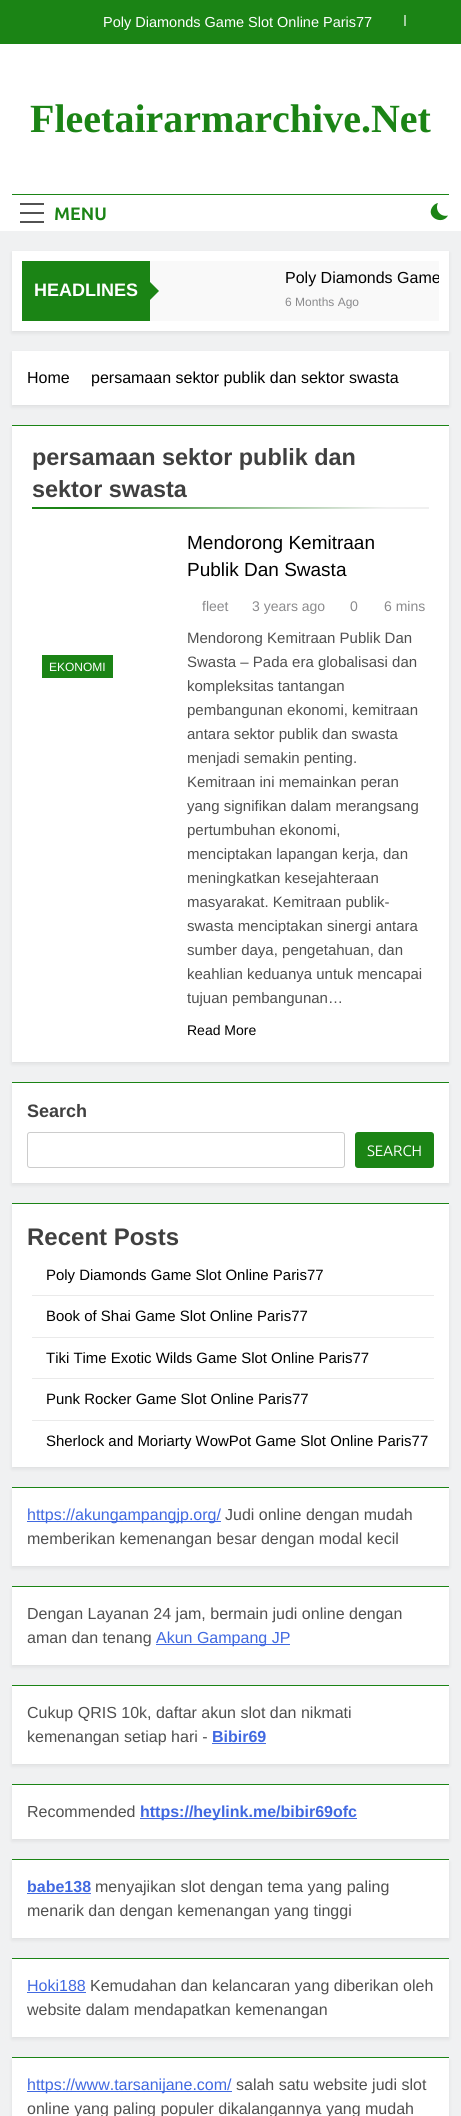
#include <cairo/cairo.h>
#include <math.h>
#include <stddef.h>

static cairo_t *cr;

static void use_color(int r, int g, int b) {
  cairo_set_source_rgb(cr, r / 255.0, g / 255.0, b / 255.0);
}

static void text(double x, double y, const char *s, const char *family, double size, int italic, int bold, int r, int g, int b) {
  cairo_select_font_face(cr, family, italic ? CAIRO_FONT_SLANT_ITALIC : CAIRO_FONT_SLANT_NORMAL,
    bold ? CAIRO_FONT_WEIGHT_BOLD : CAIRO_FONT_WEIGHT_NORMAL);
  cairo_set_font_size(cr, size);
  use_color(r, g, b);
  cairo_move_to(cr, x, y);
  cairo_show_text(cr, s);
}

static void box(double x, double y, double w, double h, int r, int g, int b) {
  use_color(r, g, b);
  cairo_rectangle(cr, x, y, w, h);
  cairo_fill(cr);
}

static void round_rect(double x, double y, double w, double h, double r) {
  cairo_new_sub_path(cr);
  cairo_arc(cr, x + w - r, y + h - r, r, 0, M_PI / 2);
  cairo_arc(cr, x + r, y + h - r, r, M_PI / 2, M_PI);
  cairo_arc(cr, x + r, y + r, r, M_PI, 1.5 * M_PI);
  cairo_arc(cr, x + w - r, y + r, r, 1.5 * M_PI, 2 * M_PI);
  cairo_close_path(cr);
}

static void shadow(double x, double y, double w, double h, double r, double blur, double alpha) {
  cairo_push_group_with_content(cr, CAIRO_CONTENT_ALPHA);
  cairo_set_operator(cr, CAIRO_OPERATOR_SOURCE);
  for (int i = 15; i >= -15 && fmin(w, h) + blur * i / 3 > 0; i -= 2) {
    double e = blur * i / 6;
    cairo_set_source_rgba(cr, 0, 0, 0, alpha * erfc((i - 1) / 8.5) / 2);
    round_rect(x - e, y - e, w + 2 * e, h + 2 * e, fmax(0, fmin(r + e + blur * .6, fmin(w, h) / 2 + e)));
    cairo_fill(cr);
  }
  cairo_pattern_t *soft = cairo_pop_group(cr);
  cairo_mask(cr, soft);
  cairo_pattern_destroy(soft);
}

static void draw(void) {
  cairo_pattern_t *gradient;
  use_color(240, 241, 242);
  cairo_paint(cr);
  box(0, 0, 461, 44, 27, 132, 21);
  box(404, 15, 2, 11, 164, 206, 161);
  box(0, 44, 461, 187, 255, 255, 255);
  box(12, 194, 437, 1, 27, 132, 21);
  box(20, 203, 24, 2, 82, 82, 82);
  box(20, 212, 24, 2, 82, 82, 82);
  box(20, 221, 24, 2, 82, 82, 82);
  use_color(27, 132, 21);
  cairo_new_path(cr);
  cairo_move_to(cr, 448, 215.5);
  cairo_curve_to(cr, 440.5, 217.5, 434.5, 210, 438, 203);
  cairo_curve_to(cr, 435.5, 203.5, 433.5, 205, 432, 207.5);
  cairo_curve_to(cr, 426, 217.5, 442.5, 225.5, 448, 215.5);
  cairo_close_path(cr);
  cairo_fill(cr);
  use_color(0, 0, 0);
  shadow(12, 253, 437, 80, 0, 2, 0.08);
  box(12, 251, 437, 80, 255, 255, 255);
  box(22, 261, 128, 60, 27, 132, 21);
  box(150, 261, 289, 60, 249, 249, 249);
  use_color(27, 132, 21);
  cairo_new_path(cr);
  cairo_move_to(cr, 149, 301);
  cairo_line_to(cr, 149, 281);
  cairo_line_to(cr, 159, 291);
  cairo_close_path(cr);
  cairo_fill(cr);
  use_color(0, 0, 0);
  shadow(12, 353, 437, 54, 0, 2, 0.08);
  box(12, 351, 437, 54, 255, 255, 255);
  use_color(0, 0, 0);
  shadow(12, 428, 437, 636, 0, 2, 0.08);
  box(12, 426, 437, 636, 255, 255, 255);
  box(12, 425, 437, 1, 27, 132, 21);
  gradient = cairo_pattern_create_linear(229, 493, 232, 523);
  cairo_pattern_add_color_stop_rgba(gradient, 0, 0.106, 0.518, 0.082, 1);
  cairo_pattern_add_color_stop_rgba(gradient, 1, 0.941, 0.941, 0.941, 1);
  cairo_set_source(cr, gradient);
  cairo_pattern_destroy(gradient);
  cairo_rectangle(cr, 32, 507, 397, 2);
  cairo_fill(cr);
  box(42, 655, 71, 23, 27, 132, 21);
  use_color(0, 0, 0);
  shadow(12, 1085, 437, 100, 0, 2, 0.08);
  box(12, 1083, 437, 100, 255, 255, 255);
  box(12, 1082, 437, 1, 27, 132, 21);
  round_rect(27.5, 1132.5, 317, 35, 2.5);
  use_color(204, 204, 204);
  cairo_set_line_width(cr, 1);
  cairo_stroke(cr);
  use_color(27, 132, 21);
  round_rect(355, 1132, 79, 36, 3);
  cairo_fill(cr);
  use_color(0, 0, 0);
  shadow(12, 1206, 437, 263, 0, 2, 0.08);
  box(12, 1204, 437, 263, 255, 255, 255);
  box(12, 1203, 437, 1, 27, 132, 21);
  box(32, 1295, 402, 1, 234, 234, 234);
  box(32, 1337, 402, 1, 234, 234, 234);
  box(32, 1378, 402, 1, 234, 234, 234);
  box(32, 1420, 402, 1, 234, 234, 234);
  use_color(0, 0, 0);
  shadow(12, 1490, 437, 78, 0, 2, 0.08);
  box(12, 1488, 437, 78, 255, 255, 255);
  box(12, 1487, 437, 1, 27, 132, 21);
  box(27, 1521, 194, 1, 65, 105, 225);
  use_color(0, 0, 0);
  shadow(12, 1589, 437, 78, 0, 2, 0.08);
  box(12, 1587, 437, 78, 255, 255, 255);
  box(12, 1586, 437, 1, 27, 132, 21);
  box(156, 1644, 134, 1, 65, 105, 225);
  use_color(0, 0, 0);
  shadow(12, 1688, 437, 78, 0, 2, 0.08);
  box(12, 1686, 437, 78, 255, 255, 255);
  box(12, 1685, 437, 1, 27, 132, 21);
  box(212, 1743, 54, 1, 65, 105, 225);
  use_color(0, 0, 0);
  shadow(12, 1787, 437, 54, 0, 2, 0.08);
  box(12, 1785, 437, 54, 255, 255, 255);
  box(12, 1784, 437, 1, 27, 132, 21);
  box(140, 1818, 217, 1, 65, 105, 225);
  use_color(0, 0, 0);
  shadow(12, 1862, 437, 78, 0, 2, 0.08);
  box(12, 1860, 437, 78, 255, 255, 255);
  box(12, 1859, 437, 1, 27, 132, 21);
  box(27, 1893, 64, 1, 65, 105, 225);
  use_color(0, 0, 0);
  shadow(12, 1961, 437, 78, 0, 2, 0.08);
  box(12, 1959, 437, 78, 255, 255, 255);
  box(12, 1958, 437, 1, 27, 132, 21);
  box(27, 1992, 59, 1, 65, 105, 225);
  use_color(0, 0, 0);
  shadow(12, 2060, 437, 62, 0, 2, 0.08);
  box(12, 2058, 437, 58, 255, 255, 255);
  box(12, 2057, 437, 1, 27, 132, 21);
  box(27, 2091, 205, 1, 65, 105, 225);
  text(103, 27, "Poly Diamonds Game Slot Online Paris77", "Liberation Sans", 14.5, 0, 0, 255, 255, 255);
  text(30, 132, "Fleetairarmarchive.Net", "Liberation Serif", 40, 0, 1, 27, 132, 21);
  text(54, 220, "MENU", "Ubuntu", 18, 0, 1, 27, 132, 21);
  text(34, 296, "HEADLINES", "Liberation Sans", 18, 0, 1, 255, 255, 255);
  cairo_save(cr);
  cairo_rectangle(cr, 285, 268, 154, 19);
  cairo_clip(cr);
  text(285, 283, "Poly Diamonds Game", "Liberation Sans", 16, 0, 0, 0, 0, 0);
  cairo_restore(cr);
  text(285, 306, "6 Months Ago", "Liberation Sans", 12, 0, 0, 138, 138, 140);
  text(27, 383, "Home", "Liberation Sans", 16, 0, 0, 0, 0, 0);
  text(91, 383, "persamaan sektor publik dan sektor swasta", "Liberation Sans", 16, 0, 0, 0, 0, 0);
  text(32, 465, "persamaan sektor publik dan", "Liberation Sans", 23.4, 0, 1, 64, 64, 64);
  text(32, 497, "sektor swasta", "Liberation Sans", 23.4, 0, 1, 64, 64, 64);
  text(49, 671, "EKONOMI", "Liberation Sans", 12, 0, 0, 255, 255, 255);
  text(187, 549, "Mendorong Kemitraan", "Liberation Sans", 19, 0, 0, 0, 0, 0);
  text(187, 576, "Publik Dan Swasta", "Liberation Sans", 19, 0, 0, 0, 0, 0);
  text(202, 611, "fleet", "Liberation Sans", 14, 0, 0, 138, 138, 140);
  text(252, 611, "3 years ago", "Liberation Sans", 14, 0, 0, 138, 138, 140);
  text(350, 611, "0", "Liberation Sans", 14, 0, 0, 138, 138, 140);
  text(384, 611, "6 mins", "Liberation Sans", 14, 0, 0, 138, 138, 140);
  text(187, 643, "Mendorong Kemitraan Publik Dan", "Liberation Sans", 15, 0, 0, 80, 80, 80);
  text(187, 667, "Swasta – Pada era globalisasi dan", "Liberation Sans", 15, 0, 0, 80, 80, 80);
  text(187, 691, "kompleksitas tantangan", "Liberation Sans", 15, 0, 0, 80, 80, 80);
  text(187, 715, "pembangunan ekonomi, kemitraan", "Liberation Sans", 15, 0, 0, 80, 80, 80);
  text(187, 739, "antara sektor publik dan swasta", "Liberation Sans", 15, 0, 0, 80, 80, 80);
  text(187, 763, "menjadi semakin penting.", "Liberation Sans", 15, 0, 0, 80, 80, 80);
  text(187, 787, "Kemitraan ini memainkan peran", "Liberation Sans", 15, 0, 0, 80, 80, 80);
  text(187, 811, "yang signifikan dalam merangsang", "Liberation Sans", 15, 0, 0, 80, 80, 80);
  text(187, 835, "pertumbuhan ekonomi,", "Liberation Sans", 15, 0, 0, 80, 80, 80);
  text(187, 859, "menciptakan lapangan kerja, dan", "Liberation Sans", 15, 0, 0, 80, 80, 80);
  text(187, 883, "meningkatkan kesejahteraan", "Liberation Sans", 15, 0, 0, 80, 80, 80);
  text(187, 907, "masyarakat. Kemitraan publik-", "Liberation Sans", 15, 0, 0, 80, 80, 80);
  text(187, 931, "swasta menciptakan sinergi antara", "Liberation Sans", 15, 0, 0, 80, 80, 80);
  text(187, 955, "sumber daya, pengetahuan, dan", "Liberation Sans", 15, 0, 0, 80, 80, 80);
  text(187, 979, "keahlian keduanya untuk mencapai", "Liberation Sans", 15, 0, 0, 80, 80, 80);
  text(187, 1003, "tujuan pembangunan…", "Liberation Sans", 15, 0, 0, 80, 80, 80);
  text(187, 1035, "Read More", "Liberation Sans", 14, 0, 0, 0, 0, 0);
  text(27, 1117, "Search", "Liberation Sans", 18, 0, 1, 64, 64, 64);
  text(367, 1156, "SEARCH", "Ubuntu", 15, 0, 0, 255, 255, 255);
  text(27, 1245, "Recent Posts", "Liberation Sans", 24, 0, 1, 64, 64, 64);
  text(46, 1280, "Poly Diamonds Game Slot Online Paris77", "Liberation Sans", 14.95, 0, 0, 0, 0, 0);
  text(46, 1321, "Book of Shai Game Slot Online Paris77", "Liberation Sans", 14.95, 0, 0, 0, 0, 0);
  text(46, 1363, "Tiki Time Exotic Wilds Game Slot Online Paris77", "Liberation Sans", 14.95, 0, 0, 0, 0, 0);
  text(46, 1404, "Punk Rocker Game Slot Online Paris77", "Liberation Sans", 14.95, 0, 0, 0, 0, 0);
  text(46, 1446, "Sherlock and Moriarty WowPot Game Slot Online Paris77", "Liberation Sans", 14.95, 0, 0, 0, 0, 0);
  text(27, 1520, "https://akungampangjp.org/", "Liberation Sans", 16, 0, 0, 65, 105, 225);
  text(225, 1520, "Judi online dengan mudah", "Liberation Sans", 16, 0, 0, 80, 80, 80);
  text(27, 1544, "memberikan kemenangan besar dengan modal kecil", "Liberation Sans", 16, 0, 0, 80, 80, 80);
  text(27, 1619, "Dengan Layanan 24 jam, bermain judi online dengan", "Liberation Sans", 16, 0, 0, 80, 80, 80);
  text(27, 1643, "aman dan tenang", "Liberation Sans", 16, 0, 0, 80, 80, 80);
  text(156, 1643, "Akun Gampang JP", "Liberation Sans", 16, 0, 0, 65, 105, 225);
  text(27, 1718, "Cukup QRIS 10k, daftar akun slot dan nikmati", "Liberation Sans", 16, 0, 0, 80, 80, 80);
  text(27, 1742, "kemenangan setiap hari -", "Liberation Sans", 16, 0, 0, 80, 80, 80);
  text(212, 1742, "Bibir69", "Liberation Sans", 16, 0, 1, 65, 105, 225);
  text(27, 1817, "Recommended", "Liberation Sans", 16, 0, 0, 80, 80, 80);
  text(140, 1817, "https://heylink.me/bibir69ofc", "Liberation Sans", 16, 0, 1, 65, 105, 225);
  text(27, 1892, "babe138", "Liberation Sans", 16, 0, 1, 65, 105, 225);
  text(95, 1892, "menyajikan slot dengan tema yang paling", "Liberation Sans", 16, 0, 0, 80, 80, 80);
  text(27, 1916, "menarik dan dengan kemenangan yang tinggi", "Liberation Sans", 16, 0, 0, 80, 80, 80);
  text(27, 1991, "Hoki188", "Liberation Sans", 16, 0, 0, 65, 105, 225);
  text(90, 1991, "Kemudahan dan kelancaran yang diberikan oleh", "Liberation Sans", 16, 0, 0, 80, 80, 80);
  text(27, 2015, "website dalam mendapatkan kemenangan", "Liberation Sans", 16, 0, 0, 80, 80, 80);
  text(27, 2090, "https://www.tarsanijane.com/", "Liberation Sans", 16, 0, 0, 65, 105, 225);
  text(236, 2090, "salah satu website judi slot", "Liberation Sans", 16, 0, 0, 80, 80, 80);
  text(27, 2114, "online yang paling populer dikalangannya yang mudah", "Liberation Sans", 16, 0, 0, 80, 80, 80);
}

int main(void) {
  cairo_surface_t *surface = cairo_image_surface_create(CAIRO_FORMAT_RGB24, 461, 2116);
  cr = cairo_create(surface);
  cairo_font_options_t *options = cairo_font_options_create();
  cairo_font_options_set_hint_metrics(options, CAIRO_HINT_METRICS_OFF);
  cairo_font_options_set_hint_style(options, CAIRO_HINT_STYLE_NONE);
  cairo_set_font_options(cr, options);
  cairo_set_miter_limit(cr, 4);
  draw();
  cairo_surface_write_to_png(surface, "out.png");
  cairo_font_options_destroy(options);
  cairo_destroy(cr);
  cairo_surface_destroy(surface);
  return 0;
}
